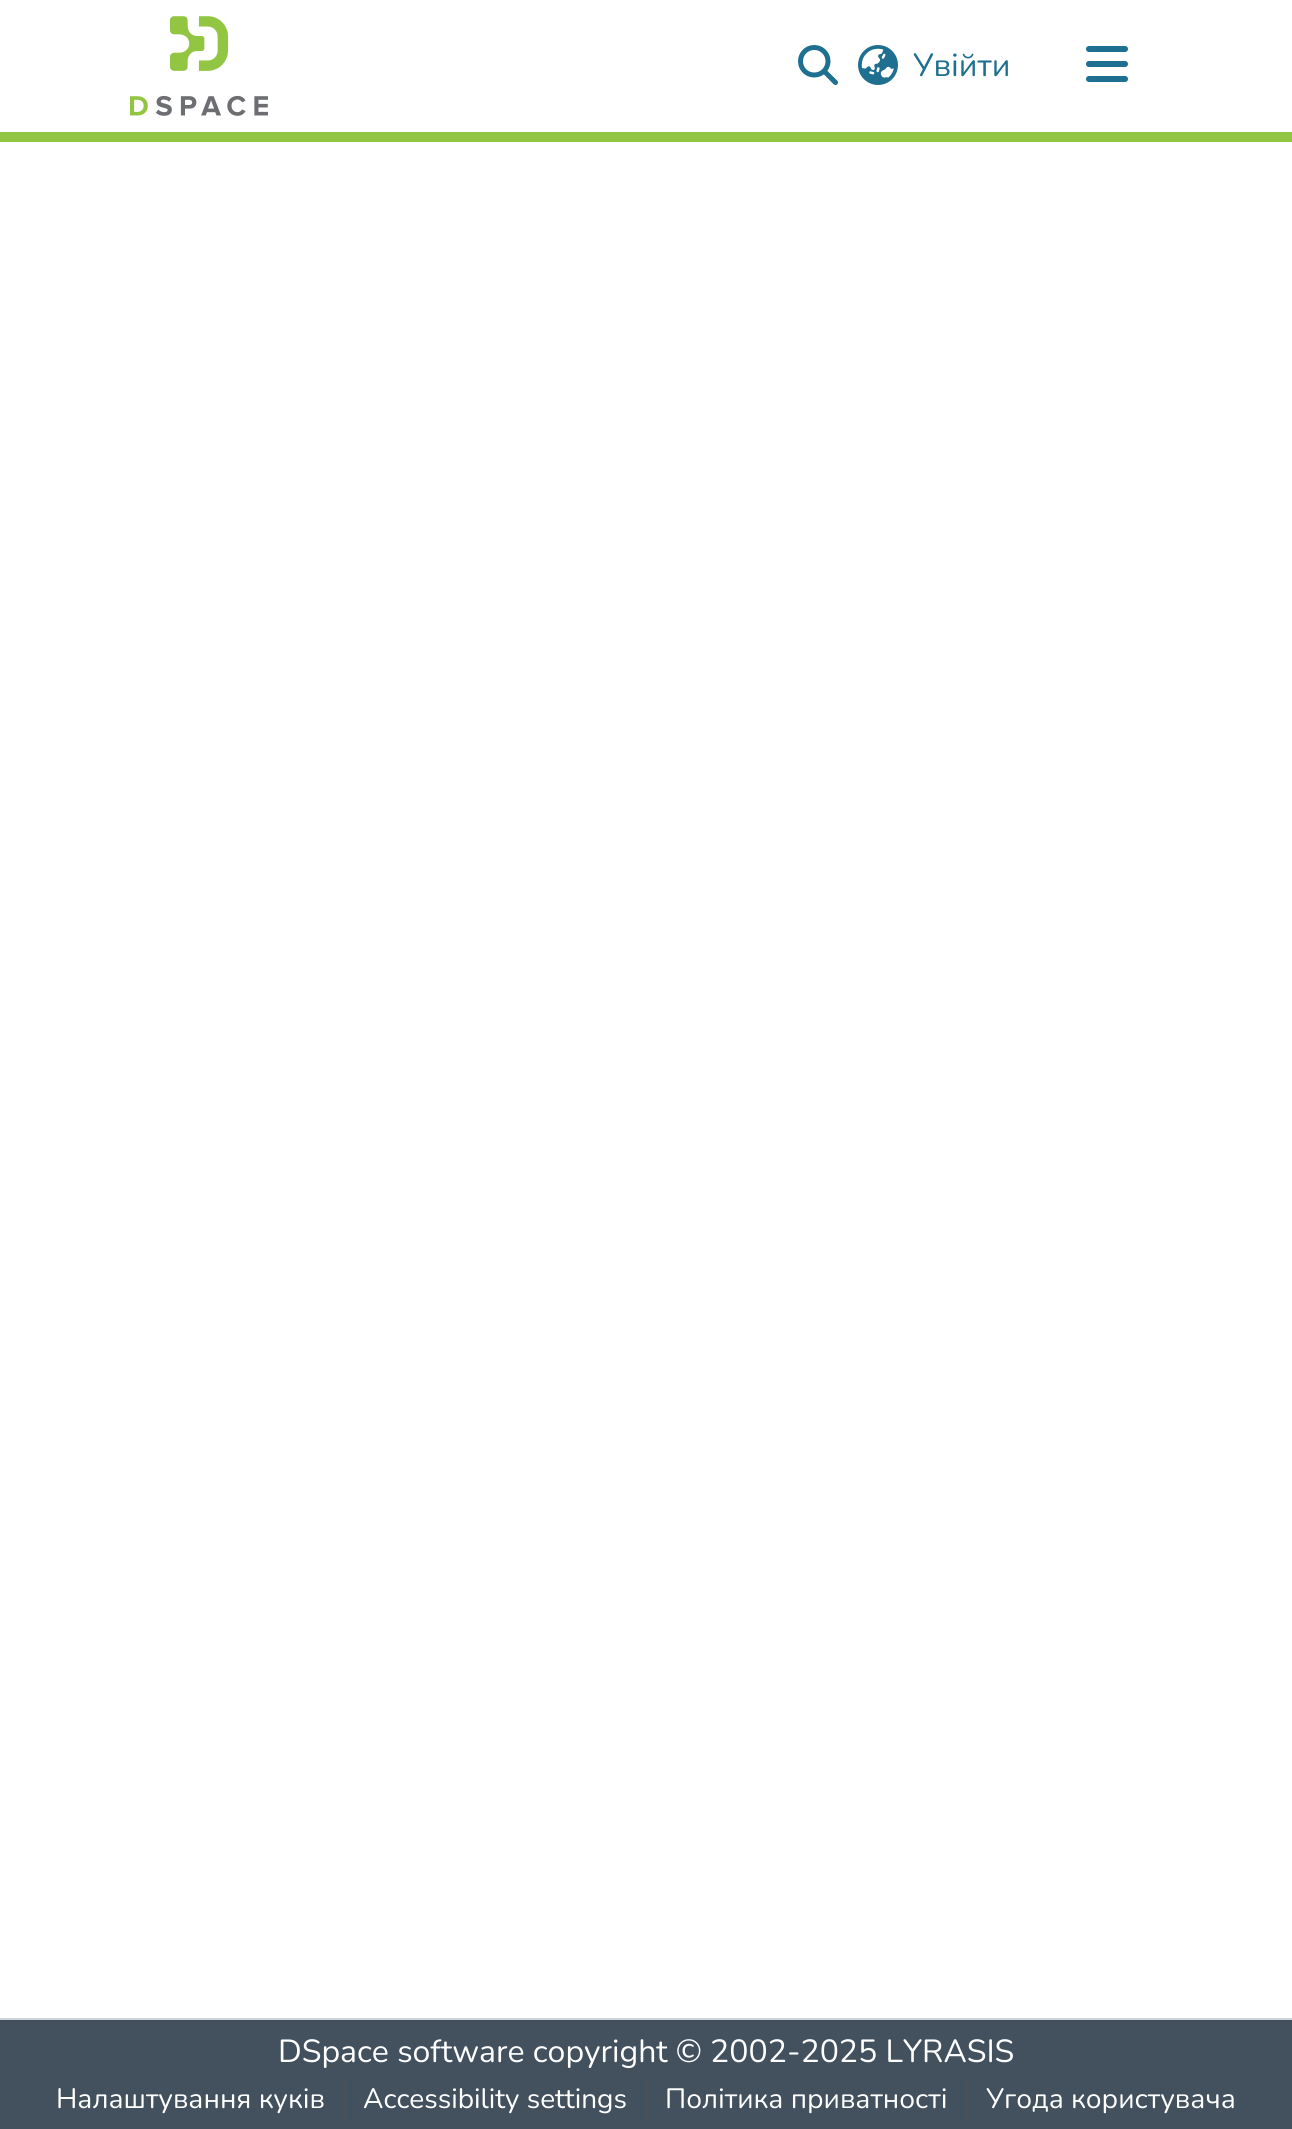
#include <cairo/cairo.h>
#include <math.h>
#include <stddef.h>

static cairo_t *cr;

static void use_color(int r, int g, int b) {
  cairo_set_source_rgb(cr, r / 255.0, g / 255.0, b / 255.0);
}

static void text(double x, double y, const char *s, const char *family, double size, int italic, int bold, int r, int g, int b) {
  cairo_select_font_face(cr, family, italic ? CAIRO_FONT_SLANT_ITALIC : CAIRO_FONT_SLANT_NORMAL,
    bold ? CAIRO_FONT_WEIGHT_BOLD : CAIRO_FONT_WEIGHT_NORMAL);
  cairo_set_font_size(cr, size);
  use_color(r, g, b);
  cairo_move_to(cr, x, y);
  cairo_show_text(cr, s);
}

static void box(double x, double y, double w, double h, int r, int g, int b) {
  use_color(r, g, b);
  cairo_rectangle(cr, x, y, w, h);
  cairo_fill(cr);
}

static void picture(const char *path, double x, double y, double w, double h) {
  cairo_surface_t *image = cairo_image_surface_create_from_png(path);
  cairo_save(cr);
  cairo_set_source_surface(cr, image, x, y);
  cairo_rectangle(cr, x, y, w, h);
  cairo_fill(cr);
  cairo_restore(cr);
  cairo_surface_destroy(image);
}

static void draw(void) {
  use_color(255, 255, 255);
  cairo_paint(cr);
  box(0, 132, 1292, 10, 146, 198, 66);
  picture("img_01.png", 130, 16, 138, 100);
  picture("img_02.png", 798, 45, 40, 40);
  picture("img_03.png", 858, 45, 40, 40);
  picture("img_04.png", 1086, 46, 42, 36);
  box(0, 2020, 1292, 109, 67, 81, 95);
  box(0, 2018, 1292, 2, 206, 212, 218);
  box(344, 2076, 2, 46, 73, 80, 87);
  box(646, 2076, 2, 46, 73, 80, 87);
  box(966, 2076, 2, 46, 73, 80, 87);
  text(913, 76, "Увійти", "Nunito", 32, 0, 0, 30, 111, 144);
  text(278, 2062, "DSpace software copyright © 2002-2025 LYRASIS", "Nunito", 32, 0, 0, 255, 255, 255);
  text(56, 2108, "Налаштування куків", "Nunito", 28, 0, 0, 255, 255, 255);
  text(363, 2108, "Accessibility settings", "Nunito", 28, 0, 0, 255, 255, 255);
  text(665, 2108, "Політика приватності", "Nunito", 28, 0, 0, 255, 255, 255);
  text(986, 2108, "Угода користувача", "Nunito", 28, 0, 0, 255, 255, 255);
}

int main(void) {
  cairo_surface_t *surface = cairo_image_surface_create(CAIRO_FORMAT_RGB24, 1292, 2129);
  cr = cairo_create(surface);
  cairo_font_options_t *options = cairo_font_options_create();
  cairo_font_options_set_hint_metrics(options, CAIRO_HINT_METRICS_OFF);
  cairo_font_options_set_hint_style(options, CAIRO_HINT_STYLE_NONE);
  cairo_set_font_options(cr, options);
  cairo_set_miter_limit(cr, 4);
  draw();
  cairo_surface_write_to_png(surface, "out.png");
  cairo_font_options_destroy(options);
  cairo_destroy(cr);
  cairo_surface_destroy(surface);
  return 0;
}
